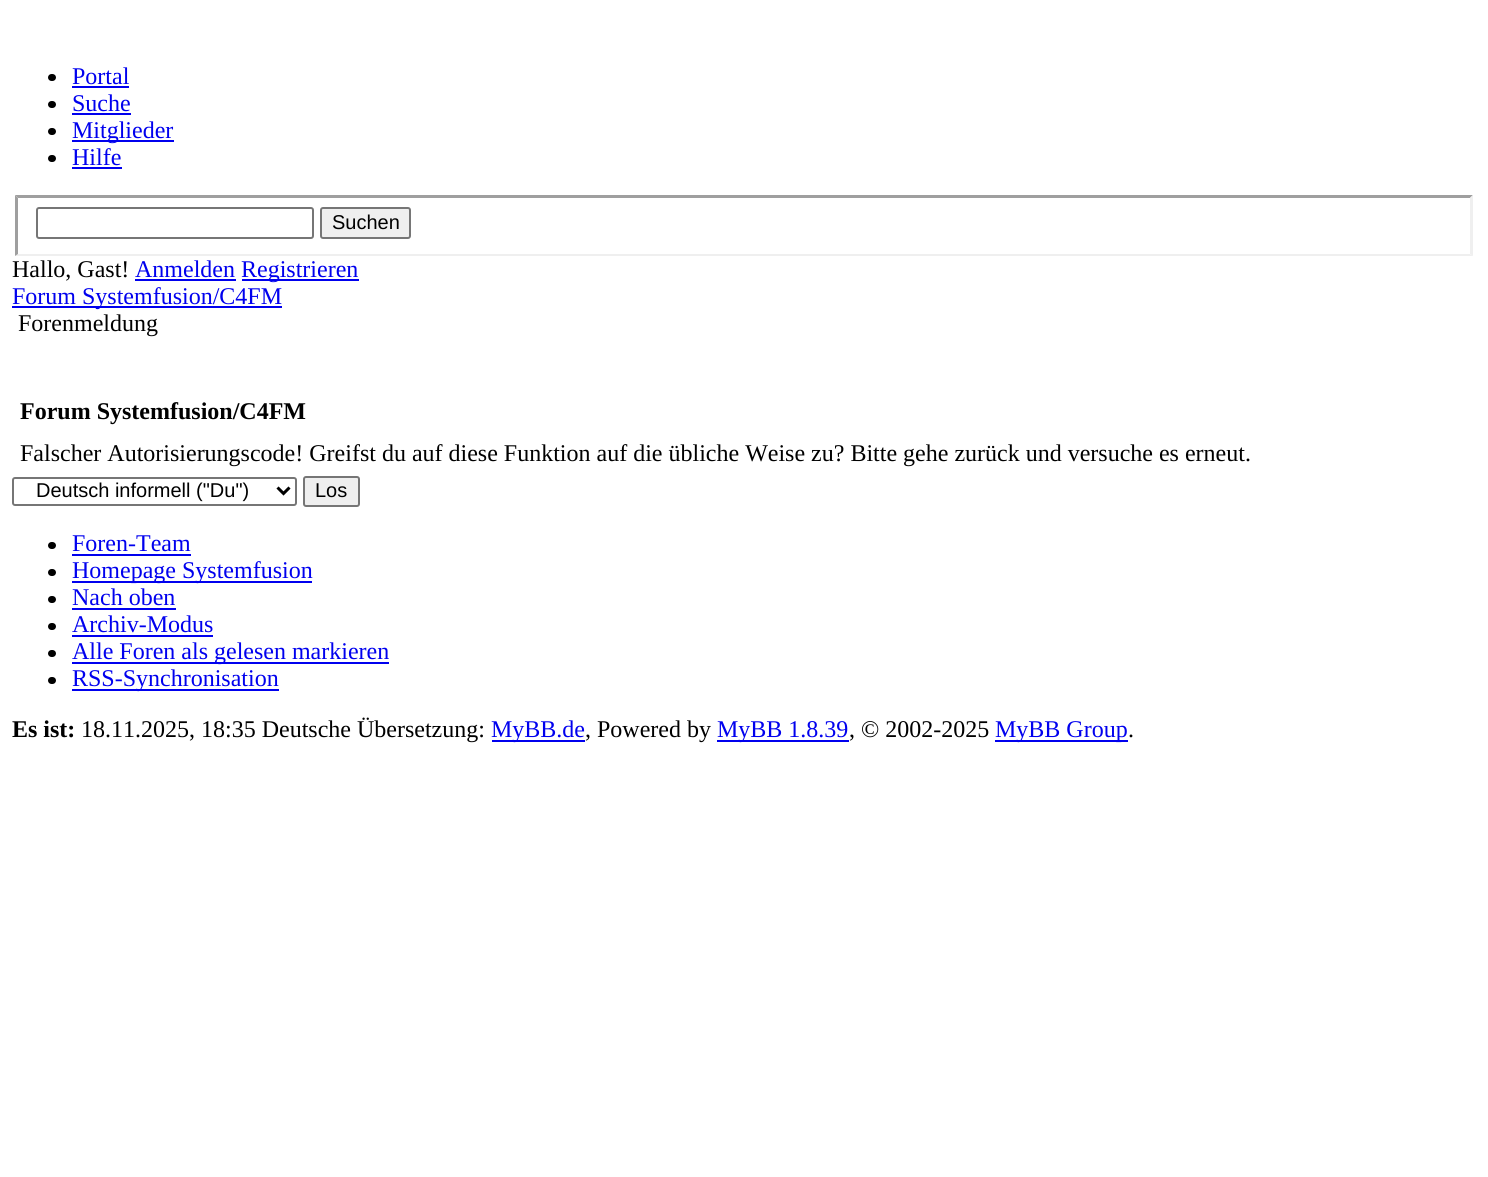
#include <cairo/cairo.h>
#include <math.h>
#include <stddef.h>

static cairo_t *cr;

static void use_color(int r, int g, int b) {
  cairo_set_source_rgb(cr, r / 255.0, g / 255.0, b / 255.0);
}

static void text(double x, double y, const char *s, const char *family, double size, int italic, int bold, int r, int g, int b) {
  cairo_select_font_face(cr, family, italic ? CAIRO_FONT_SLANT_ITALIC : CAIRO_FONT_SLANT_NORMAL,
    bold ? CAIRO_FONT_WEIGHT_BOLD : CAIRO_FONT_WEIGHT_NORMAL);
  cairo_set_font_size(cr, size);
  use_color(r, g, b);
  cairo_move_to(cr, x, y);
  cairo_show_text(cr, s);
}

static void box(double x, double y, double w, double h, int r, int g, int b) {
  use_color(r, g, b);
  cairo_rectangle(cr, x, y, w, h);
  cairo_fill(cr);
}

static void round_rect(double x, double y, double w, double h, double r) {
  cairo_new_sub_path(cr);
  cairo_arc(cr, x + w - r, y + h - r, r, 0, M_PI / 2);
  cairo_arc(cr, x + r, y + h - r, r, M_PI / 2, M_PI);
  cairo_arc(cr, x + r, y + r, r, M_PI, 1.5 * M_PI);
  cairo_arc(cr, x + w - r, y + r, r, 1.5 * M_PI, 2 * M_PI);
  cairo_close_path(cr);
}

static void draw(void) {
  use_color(255, 255, 255);
  cairo_paint(cr);
  use_color(0, 0, 0);
  round_rect(48, 74, 8, 7, 3.5);
  cairo_fill(cr);
  box(72, 86, 57, 2, 0, 0, 238);
  use_color(0, 0, 0);
  round_rect(48, 101, 8, 7, 3.5);
  cairo_fill(cr);
  box(72, 113, 59, 2, 0, 0, 238);
  use_color(0, 0, 0);
  round_rect(48, 128, 8, 7, 3.5);
  cairo_fill(cr);
  box(72, 140, 102, 2, 0, 0, 238);
  use_color(0, 0, 0);
  round_rect(48, 155, 8, 7, 3.5);
  cairo_fill(cr);
  box(72, 167, 50, 2, 0, 0, 238);
  use_color(159, 159, 159);
  cairo_new_path(cr);
  cairo_move_to(cr, 15, 195);
  cairo_line_to(cr, 1473, 195);
  cairo_line_to(cr, 1470, 198);
  cairo_line_to(cr, 18, 198);
  cairo_close_path(cr);
  cairo_fill(cr);
  use_color(239, 239, 239);
  cairo_new_path(cr);
  cairo_move_to(cr, 1473, 195);
  cairo_line_to(cr, 1473, 256);
  cairo_line_to(cr, 1470, 254);
  cairo_line_to(cr, 1470, 198);
  cairo_close_path(cr);
  cairo_fill(cr);
  cairo_new_path(cr);
  cairo_move_to(cr, 1473, 256);
  cairo_line_to(cr, 15, 256);
  cairo_line_to(cr, 18, 254);
  cairo_line_to(cr, 1470, 254);
  cairo_close_path(cr);
  cairo_fill(cr);
  use_color(159, 159, 159);
  cairo_new_path(cr);
  cairo_move_to(cr, 15, 256);
  cairo_line_to(cr, 15, 195);
  cairo_line_to(cr, 18, 198);
  cairo_line_to(cr, 18, 254);
  cairo_close_path(cr);
  cairo_fill(cr);
  round_rect(37, 208, 276, 30, 2);
  use_color(118, 118, 118);
  cairo_stroke(cr);
  use_color(239, 239, 239);
  round_rect(321, 208, 89, 30, 2);
  cairo_fill_preserve(cr);
  use_color(118, 118, 118);
  cairo_stroke(cr);
  box(135, 279, 101, 2, 0, 0, 238);
  box(242, 279, 117, 2, 0, 0, 238);
  box(12, 306, 270, 2, 0, 0, 238);
  round_rect(13, 478, 283, 27, 2);
  use_color(118, 118, 118);
  cairo_stroke(cr);
  cairo_new_path(cr);
  cairo_move_to(cr, 277.5, 487.5);
  cairo_line_to(cr, 283.5, 493.5);
  cairo_line_to(cr, 289.5, 487.5);
  use_color(0, 0, 0);
  cairo_set_line_width(cr, 3);
  cairo_stroke(cr);
  use_color(239, 239, 239);
  round_rect(304, 477, 55, 29, 2);
  cairo_fill_preserve(cr);
  use_color(118, 118, 118);
  cairo_set_line_width(cr, 2);
  cairo_stroke(cr);
  use_color(0, 0, 0);
  round_rect(48, 542, 8, 7, 3.5);
  cairo_fill(cr);
  box(72, 554, 119, 2, 0, 0, 238);
  use_color(0, 0, 0);
  round_rect(48, 569, 8, 7, 3.5);
  cairo_fill(cr);
  box(72, 581, 240, 2, 0, 0, 238);
  use_color(0, 0, 0);
  round_rect(48, 596, 8, 7, 3.5);
  cairo_fill(cr);
  box(72, 608, 104, 2, 0, 0, 238);
  use_color(0, 0, 0);
  round_rect(48, 623, 8, 7, 3.5);
  cairo_fill(cr);
  box(72, 635, 141, 2, 0, 0, 238);
  use_color(0, 0, 0);
  round_rect(48, 650, 8, 7, 3.5);
  cairo_fill(cr);
  box(72, 662, 317, 2, 0, 0, 238);
  use_color(0, 0, 0);
  round_rect(48, 677, 8, 7, 3.5);
  cairo_fill(cr);
  box(72, 689, 207, 2, 0, 0, 238);
  box(492, 740, 93, 2, 0, 0, 238);
  box(717, 740, 132, 2, 0, 0, 238);
  box(995, 740, 133, 2, 0, 0, 238);
  text(72, 84, "Portal", "Liberation Serif", 24, 0, 0, 0, 0, 238);
  text(72, 111, "Suche", "Liberation Serif", 24, 0, 0, 0, 0, 238);
  text(72, 138, "Mitglieder", "Liberation Serif", 24, 0, 0, 0, 0, 238);
  text(72, 165, "Hilfe", "Liberation Serif", 24, 0, 0, 0, 0, 238);
  text(332, 229, "Suchen", "Liberation Sans", 20, 0, 0, 0, 0, 0);
  text(12, 277, "Hallo, Gast!", "Liberation Serif", 24, 0, 0, 0, 0, 0);
  text(135, 277, "Anmelden", "Liberation Serif", 24, 0, 0, 0, 0, 238);
  text(241, 277, "Registrieren", "Liberation Serif", 24, 0, 0, 0, 0, 238);
  text(12, 304, "Forum Systemfusion/C4FM", "Liberation Serif", 24, 0, 0, 0, 0, 238);
  text(18, 331, "Forenmeldung", "Liberation Serif", 24, 0, 0, 0, 0, 0);
  text(20, 419, "Forum Systemfusion/C4FM", "Liberation Serif", 24, 0, 1, 0, 0, 0);
  text(20, 461, "Falscher Autorisierungscode! Greifst du auf diese Funktion auf die übliche Weise zu? Bitte gehe zurück und versuche es erneut.", "Liberation Serif", 24, 0, 0, 0, 0, 0);
  text(36, 497, "Deutsch informell (\"Du\")", "Liberation Sans", 20, 0, 0, 0, 0, 0);
  text(315, 497, "Los", "Liberation Sans", 20, 0, 0, 0, 0, 0);
  text(72, 551, "Foren-Team", "Liberation Serif", 24, 0, 0, 0, 0, 238);
  text(72, 578, "Homepage Systemfusion", "Liberation Serif", 24, 0, 0, 0, 0, 238);
  text(72, 605, "Nach oben", "Liberation Serif", 24, 0, 0, 0, 0, 238);
  text(72, 632, "Archiv-Modus", "Liberation Serif", 24, 0, 0, 0, 0, 238);
  text(72, 659, "Alle Foren als gelesen markieren", "Liberation Serif", 24, 0, 0, 0, 0, 238);
  text(72, 686, "RSS-Synchronisation", "Liberation Serif", 24, 0, 0, 0, 0, 238);
  text(12, 737, "Es ist:", "Liberation Serif", 24, 0, 1, 0, 0, 0);
  text(81, 737, "18.11.2025, 18:35 Deutsche Übersetzung:", "Liberation Serif", 24, 0, 0, 0, 0, 0);
  text(491, 737, "MyBB.de", "Liberation Serif", 24, 0, 0, 0, 0, 238);
  text(585, 737, ", Powered by", "Liberation Serif", 24, 0, 0, 0, 0, 0);
  text(717, 737, "MyBB 1.8.39", "Liberation Serif", 24, 0, 0, 0, 0, 238);
  text(849, 737, ", © 2002-2025", "Liberation Serif", 24, 0, 0, 0, 0, 0);
  text(995, 737, "MyBB Group", "Liberation Serif", 24, 0, 0, 0, 0, 238);
  text(1128, 737, ".", "Liberation Serif", 24, 0, 0, 0, 0, 0);
}

int main(void) {
  cairo_surface_t *surface = cairo_image_surface_create(CAIRO_FORMAT_RGB24, 1488, 1177);
  cr = cairo_create(surface);
  cairo_font_options_t *options = cairo_font_options_create();
  cairo_font_options_set_hint_metrics(options, CAIRO_HINT_METRICS_OFF);
  cairo_font_options_set_hint_style(options, CAIRO_HINT_STYLE_NONE);
  cairo_set_font_options(cr, options);
  cairo_set_miter_limit(cr, 4);
  draw();
  cairo_surface_write_to_png(surface, "out.png");
  cairo_font_options_destroy(options);
  cairo_destroy(cr);
  cairo_surface_destroy(surface);
  return 0;
}
